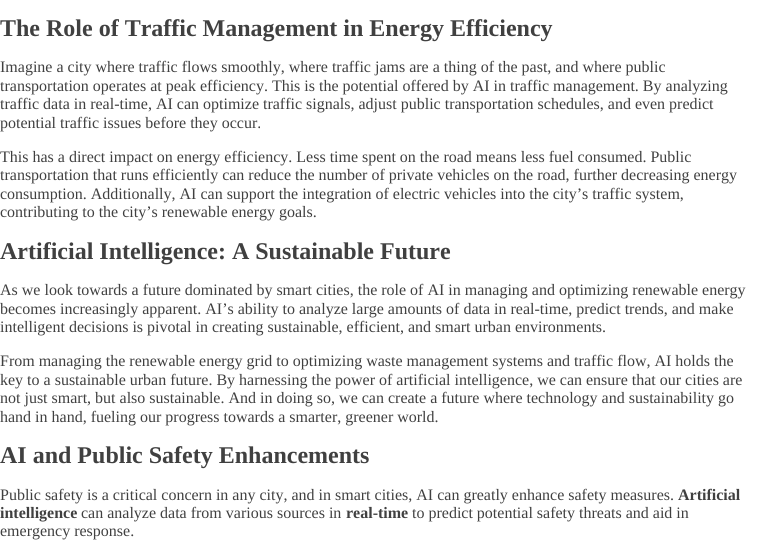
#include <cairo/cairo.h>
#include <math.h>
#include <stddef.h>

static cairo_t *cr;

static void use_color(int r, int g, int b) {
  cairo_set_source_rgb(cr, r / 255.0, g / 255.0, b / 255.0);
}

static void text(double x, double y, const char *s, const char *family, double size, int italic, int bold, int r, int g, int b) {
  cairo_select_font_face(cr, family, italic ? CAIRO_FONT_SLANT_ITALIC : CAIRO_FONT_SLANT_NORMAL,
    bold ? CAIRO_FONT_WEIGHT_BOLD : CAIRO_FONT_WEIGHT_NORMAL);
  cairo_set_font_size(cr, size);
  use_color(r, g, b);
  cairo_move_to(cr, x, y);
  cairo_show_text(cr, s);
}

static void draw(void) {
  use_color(255, 255, 255);
  cairo_paint(cr);
  text(0, 36, "The Role of Traffic Management in Energy Efficiency", "Liberation Serif", 24, 0, 1, 64, 64, 64);
  text(0, 72, "Imagine a city where traffic flows smoothly, where traffic jams are a thing of the past, and where public", "Liberation Serif", 16, 0, 0, 64, 64, 64);
  text(0, 91, "transportation operates at peak efficiency. This is the potential offered by AI in traffic management. By analyzing", "Liberation Serif", 16, 0, 0, 64, 64, 64);
  text(0, 109, "traffic data in real-time, AI can optimize traffic signals, adjust public transportation schedules, and even predict", "Liberation Serif", 16, 0, 0, 64, 64, 64);
  text(0, 128, "potential traffic issues before they occur.", "Liberation Serif", 16, 0, 0, 64, 64, 64);
  text(0, 162, "This has a direct impact on energy efficiency. Less time spent on the road means less fuel consumed. Public", "Liberation Serif", 16, 0, 0, 64, 64, 64);
  text(0, 180, "transportation that runs efficiently can reduce the number of private vehicles on the road, further decreasing energy", "Liberation Serif", 16, 0, 0, 64, 64, 64);
  text(0, 199, "consumption. Additionally, AI can support the integration of electric vehicles into the city’s traffic system,", "Liberation Serif", 16, 0, 0, 64, 64, 64);
  text(0, 217, "contributing to the city’s renewable energy goals.", "Liberation Serif", 16, 0, 0, 64, 64, 64);
  text(0, 259, "Artificial Intelligence: A Sustainable Future", "Liberation Serif", 24, 0, 1, 64, 64, 64);
  text(0, 295, "As we look towards a future dominated by smart cities, the role of AI in managing and optimizing renewable energy", "Liberation Serif", 16, 0, 0, 64, 64, 64);
  text(0, 314, "becomes increasingly apparent. AI’s ability to analyze large amounts of data in real-time, predict trends, and make", "Liberation Serif", 16, 0, 0, 64, 64, 64);
  text(0, 332, "intelligent decisions is pivotal in creating sustainable, efficient, and smart urban environments.", "Liberation Serif", 16, 0, 0, 64, 64, 64);
  text(0, 366, "From managing the renewable energy grid to optimizing waste management systems and traffic flow, AI holds the", "Liberation Serif", 16, 0, 0, 64, 64, 64);
  text(0, 385, "key to a sustainable urban future. By harnessing the power of artificial intelligence, we can ensure that our cities are", "Liberation Serif", 16, 0, 0, 64, 64, 64);
  text(0, 403, "not just smart, but also sustainable. And in doing so, we can create a future where technology and sustainability go", "Liberation Serif", 16, 0, 0, 64, 64, 64);
  text(0, 422, "hand in hand, fueling our progress towards a smarter, greener world.", "Liberation Serif", 16, 0, 0, 64, 64, 64);
  text(0, 463, "AI and Public Safety Enhancements", "Liberation Serif", 24, 0, 1, 64, 64, 64);
  text(0, 500, "Public safety is a critical concern in any city, and in smart cities, AI can greatly enhance safety measures.", "Liberation Serif", 16, 0, 0, 64, 64, 64);
  text(678, 500, "Artificial", "Liberation Serif", 16, 0, 1, 64, 64, 64);
  text(0, 518, "intelligence", "Liberation Serif", 16, 0, 1, 64, 64, 64);
  text(81, 518, "can analyze data from various sources in", "Liberation Serif", 16, 0, 0, 64, 64, 64);
  text(346, 518, "real-time", "Liberation Serif", 16, 0, 1, 64, 64, 64);
  text(412, 518, "to predict potential safety threats and aid in", "Liberation Serif", 16, 0, 0, 64, 64, 64);
  text(0, 536, "emergency response.", "Liberation Serif", 16, 0, 0, 64, 64, 64);
}

int main(void) {
  cairo_surface_t *surface = cairo_image_surface_create(CAIRO_FORMAT_RGB24, 757, 556);
  cr = cairo_create(surface);
  cairo_font_options_t *options = cairo_font_options_create();
  cairo_font_options_set_hint_metrics(options, CAIRO_HINT_METRICS_OFF);
  cairo_font_options_set_hint_style(options, CAIRO_HINT_STYLE_NONE);
  cairo_set_font_options(cr, options);
  cairo_set_miter_limit(cr, 4);
  draw();
  cairo_surface_write_to_png(surface, "out.png");
  cairo_font_options_destroy(options);
  cairo_destroy(cr);
  cairo_surface_destroy(surface);
  return 0;
}
